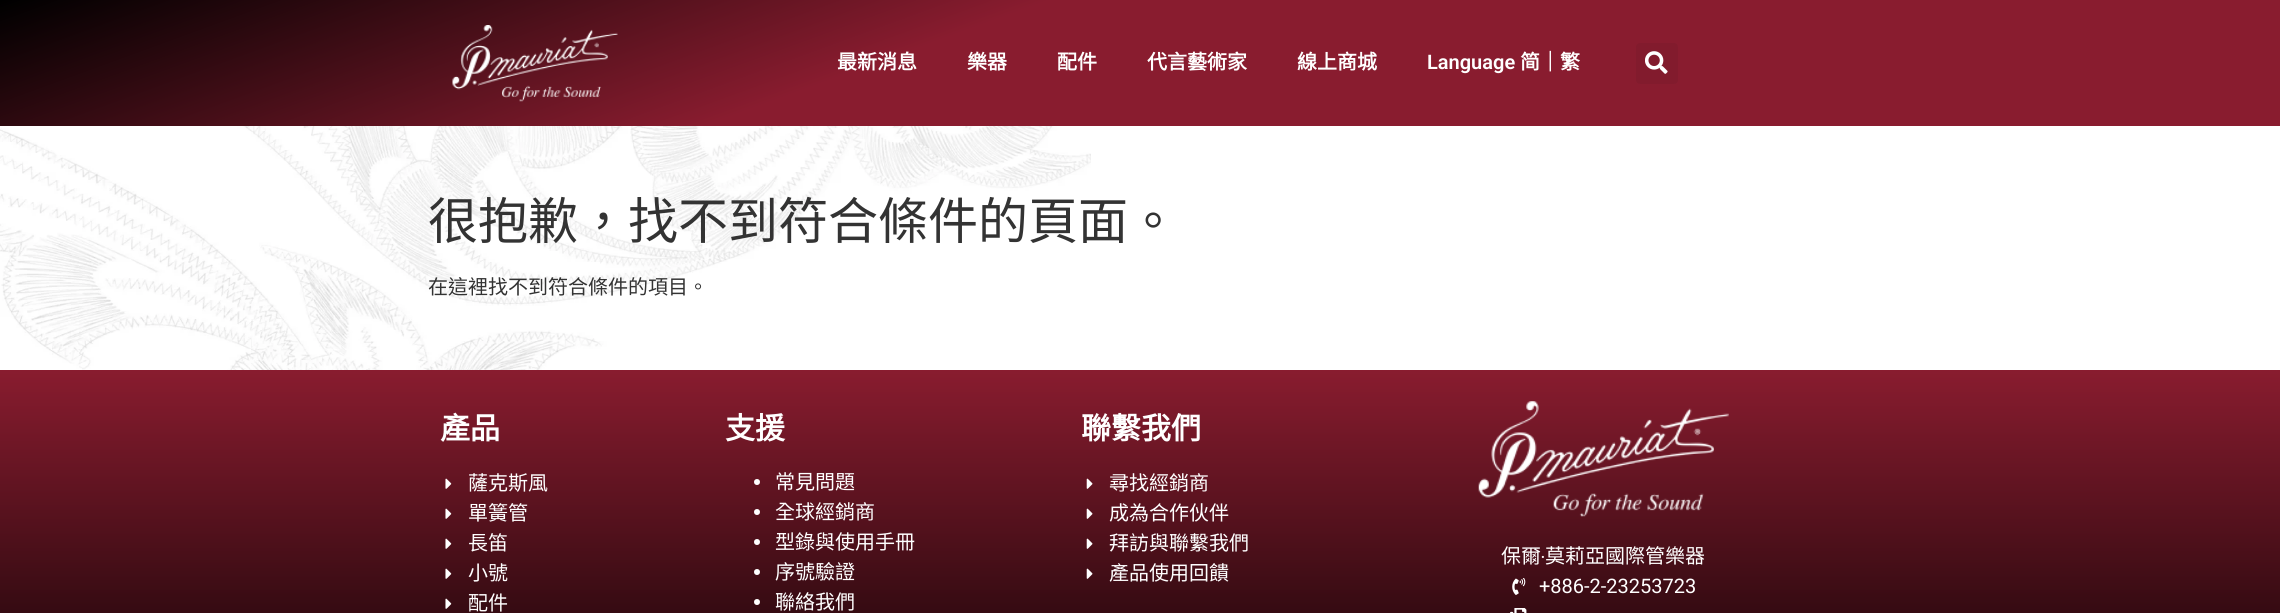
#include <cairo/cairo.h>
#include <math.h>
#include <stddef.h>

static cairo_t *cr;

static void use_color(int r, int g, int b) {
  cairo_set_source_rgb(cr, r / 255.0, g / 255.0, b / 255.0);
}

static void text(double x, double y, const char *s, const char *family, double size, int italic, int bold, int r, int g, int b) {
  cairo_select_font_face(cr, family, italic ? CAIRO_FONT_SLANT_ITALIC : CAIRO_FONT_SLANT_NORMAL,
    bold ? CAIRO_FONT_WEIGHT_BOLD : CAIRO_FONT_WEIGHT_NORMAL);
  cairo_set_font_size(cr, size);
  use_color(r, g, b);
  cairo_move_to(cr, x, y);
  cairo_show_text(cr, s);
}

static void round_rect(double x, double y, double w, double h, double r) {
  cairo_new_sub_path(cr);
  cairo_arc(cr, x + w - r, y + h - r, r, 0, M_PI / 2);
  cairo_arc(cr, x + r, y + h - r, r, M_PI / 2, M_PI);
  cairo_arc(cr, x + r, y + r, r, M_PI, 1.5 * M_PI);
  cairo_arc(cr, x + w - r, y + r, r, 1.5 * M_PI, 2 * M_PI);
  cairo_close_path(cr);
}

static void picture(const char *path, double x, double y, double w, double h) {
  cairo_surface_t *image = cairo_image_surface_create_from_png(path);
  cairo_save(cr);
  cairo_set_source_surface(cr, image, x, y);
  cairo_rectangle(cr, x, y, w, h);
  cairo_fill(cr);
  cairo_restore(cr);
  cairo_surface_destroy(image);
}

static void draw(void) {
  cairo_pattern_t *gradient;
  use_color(255, 255, 255);
  cairo_paint(cr);
  picture("img_01.png", 0, 126, 1091, 244);
  gradient = cairo_pattern_create_linear(1294, 485, 986, -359);
  cairo_pattern_add_color_stop_rgba(gradient, 0.6, 0.537, 0.11, 0.184, 1);
  cairo_pattern_add_color_stop_rgba(gradient, 1, 0, 0, 0, 1);
  cairo_set_source(cr, gradient);
  cairo_pattern_destroy(gradient);
  cairo_rectangle(cr, 0, 0, 2280, 126);
  cairo_fill(cr);
  picture("img_02.png", 452, 25, 166, 77);
  use_color(130, 27, 45);
  round_rect(1636, 43, 42, 41, 4);
  cairo_fill(cr);
  picture("img_03.png", 1645, 51, 23, 23);
  gradient = cairo_pattern_create_linear(1140, 370, 1140, 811);
  cairo_pattern_add_color_stop_rgba(gradient, 0, 0.537, 0.11, 0.184, 1);
  cairo_pattern_add_color_stop_rgba(gradient, 0.9, 0, 0, 0, 1);
  cairo_set_source(cr, gradient);
  cairo_pattern_destroy(gradient);
  cairo_rectangle(cr, 0, 370, 2280, 243);
  cairo_fill(cr);
  picture("img_04.png", 445, 478, 7, 11);
  picture("img_05.png", 445, 508, 7, 11);
  picture("img_06.png", 445, 538, 7, 11);
  picture("img_07.png", 445, 568, 7, 11);
  picture("img_08.png", 445, 598, 7, 11);
  use_color(255, 255, 255);
  cairo_arc(cr, 757, 482, 3, 0, 2 * M_PI);
  cairo_fill(cr);
  cairo_arc(cr, 757, 512, 3, 0, 2 * M_PI);
  cairo_fill(cr);
  cairo_arc(cr, 757, 542, 3, 0, 2 * M_PI);
  cairo_fill(cr);
  cairo_arc(cr, 757, 572, 3, 0, 2 * M_PI);
  cairo_fill(cr);
  cairo_arc(cr, 757, 602, 3, 0, 2 * M_PI);
  cairo_fill(cr);
  picture("img_09.png", 1086, 478, 7, 11);
  picture("img_10.png", 1086, 508, 7, 11);
  picture("img_11.png", 1086, 538, 7, 11);
  picture("img_12.png", 1086, 568, 7, 11);
  picture("img_13.png", 1478, 401, 251, 116);
  picture("img_14.png", 1512, 578, 14, 17);
  picture("img_15.png", 1510, 608, 17, 5);
  text(837, 69, "最新消息", "Noto Sans CJK TC", 20, 0, 1, 255, 255, 255);
  text(967, 69, "樂器", "Noto Sans CJK TC", 20, 0, 1, 255, 255, 255);
  text(1057, 69, "配件", "Noto Sans CJK TC", 20, 0, 1, 255, 255, 255);
  text(1147, 69, "代言藝術家", "Noto Sans CJK TC", 20, 0, 1, 255, 255, 255);
  text(1297, 69, "線上商城", "Noto Sans CJK TC", 20, 0, 1, 255, 255, 255);
  text(1427, 69, "Language", "Roboto SemiBold", 20, 0, 0, 255, 255, 255);
  text(1520, 69, "简｜繁", "Noto Sans CJK TC", 20, 0, 1, 255, 255, 255);
  text(428, 239, "很抱歉，找不到符合條件的頁面。", "Noto Sans CJK TC", 50, 0, 0, 51, 51, 51);
  text(428, 294, "在這裡找不到符合條件的項目。", "Noto Sans CJK TC", 20, 0, 0, 51, 51, 51);
  text(440, 439, "產品", "Noto Sans CJK TC", 30, 0, 1, 255, 255, 255);
  text(468, 490, "薩克斯風", "Noto Sans CJK TC", 20, 0, 0, 255, 255, 255);
  text(468, 520, "單簧管", "Noto Sans CJK TC", 20, 0, 0, 255, 255, 255);
  text(468, 550, "長笛", "Noto Sans CJK TC", 20, 0, 0, 255, 255, 255);
  text(468, 580, "小號", "Noto Sans CJK TC", 20, 0, 0, 255, 255, 255);
  text(468, 610, "配件", "Noto Sans CJK TC", 20, 0, 0, 255, 255, 255);
  text(725, 439, "支援", "Noto Sans CJK TC", 30, 0, 1, 255, 255, 255);
  text(775, 489, "常見問題", "Noto Sans CJK TC", 20, 0, 0, 255, 255, 255);
  text(775, 519, "全球經銷商", "Noto Sans CJK TC", 20, 0, 0, 255, 255, 255);
  text(775, 549, "型錄與使用手冊", "Noto Sans CJK TC", 20, 0, 0, 255, 255, 255);
  text(775, 579, "序號驗證", "Noto Sans CJK TC", 20, 0, 0, 255, 255, 255);
  text(775, 609, "聯絡我們", "Noto Sans CJK TC", 20, 0, 0, 255, 255, 255);
  text(1081, 439, "聯繫我們", "Noto Sans CJK TC", 30, 0, 1, 255, 255, 255);
  text(1109, 490, "尋找經銷商", "Noto Sans CJK TC", 20, 0, 0, 255, 255, 255);
  text(1109, 520, "成為合作伙伴", "Noto Sans CJK TC", 20, 0, 0, 255, 255, 255);
  text(1109, 550, "拜訪與聯繫我們", "Noto Sans CJK TC", 20, 0, 0, 255, 255, 255);
  text(1109, 580, "產品使用回饋", "Noto Sans CJK TC", 20, 0, 0, 255, 255, 255);
  text(1501, 563, "保爾", "Noto Sans CJK TC", 20, 0, 0, 255, 255, 255);
  text(1541, 563, "‧", "Roboto", 20, 0, 0, 255, 255, 255);
  text(1545, 563, "莫莉亞國際管樂器", "Noto Sans CJK TC", 20, 0, 0, 255, 255, 255);
  text(1539, 593, "+886-2-23253723", "Roboto", 20, 0, 0, 255, 255, 255);
}

int main(void) {
  cairo_surface_t *surface = cairo_image_surface_create(CAIRO_FORMAT_RGB24, 2280, 613);
  cr = cairo_create(surface);
  cairo_font_options_t *options = cairo_font_options_create();
  cairo_font_options_set_hint_metrics(options, CAIRO_HINT_METRICS_OFF);
  cairo_font_options_set_hint_style(options, CAIRO_HINT_STYLE_NONE);
  cairo_set_font_options(cr, options);
  cairo_set_miter_limit(cr, 4);
  draw();
  cairo_surface_write_to_png(surface, "out.png");
  cairo_font_options_destroy(options);
  cairo_destroy(cr);
  cairo_surface_destroy(surface);
  return 0;
}
